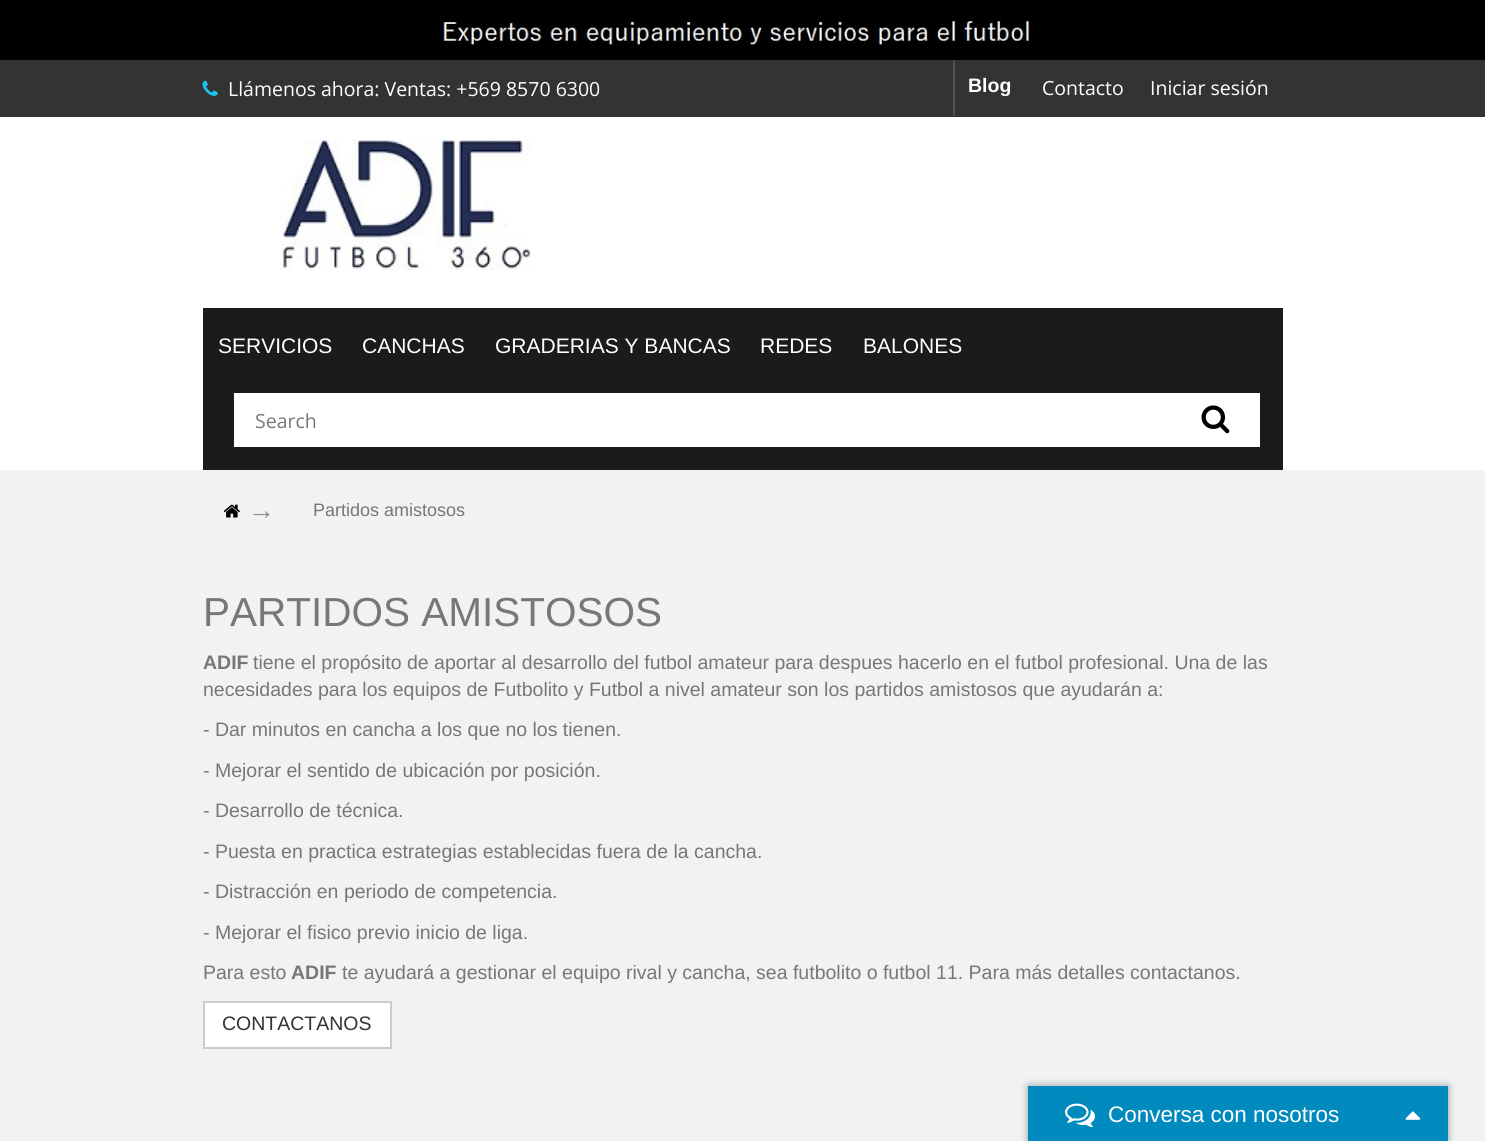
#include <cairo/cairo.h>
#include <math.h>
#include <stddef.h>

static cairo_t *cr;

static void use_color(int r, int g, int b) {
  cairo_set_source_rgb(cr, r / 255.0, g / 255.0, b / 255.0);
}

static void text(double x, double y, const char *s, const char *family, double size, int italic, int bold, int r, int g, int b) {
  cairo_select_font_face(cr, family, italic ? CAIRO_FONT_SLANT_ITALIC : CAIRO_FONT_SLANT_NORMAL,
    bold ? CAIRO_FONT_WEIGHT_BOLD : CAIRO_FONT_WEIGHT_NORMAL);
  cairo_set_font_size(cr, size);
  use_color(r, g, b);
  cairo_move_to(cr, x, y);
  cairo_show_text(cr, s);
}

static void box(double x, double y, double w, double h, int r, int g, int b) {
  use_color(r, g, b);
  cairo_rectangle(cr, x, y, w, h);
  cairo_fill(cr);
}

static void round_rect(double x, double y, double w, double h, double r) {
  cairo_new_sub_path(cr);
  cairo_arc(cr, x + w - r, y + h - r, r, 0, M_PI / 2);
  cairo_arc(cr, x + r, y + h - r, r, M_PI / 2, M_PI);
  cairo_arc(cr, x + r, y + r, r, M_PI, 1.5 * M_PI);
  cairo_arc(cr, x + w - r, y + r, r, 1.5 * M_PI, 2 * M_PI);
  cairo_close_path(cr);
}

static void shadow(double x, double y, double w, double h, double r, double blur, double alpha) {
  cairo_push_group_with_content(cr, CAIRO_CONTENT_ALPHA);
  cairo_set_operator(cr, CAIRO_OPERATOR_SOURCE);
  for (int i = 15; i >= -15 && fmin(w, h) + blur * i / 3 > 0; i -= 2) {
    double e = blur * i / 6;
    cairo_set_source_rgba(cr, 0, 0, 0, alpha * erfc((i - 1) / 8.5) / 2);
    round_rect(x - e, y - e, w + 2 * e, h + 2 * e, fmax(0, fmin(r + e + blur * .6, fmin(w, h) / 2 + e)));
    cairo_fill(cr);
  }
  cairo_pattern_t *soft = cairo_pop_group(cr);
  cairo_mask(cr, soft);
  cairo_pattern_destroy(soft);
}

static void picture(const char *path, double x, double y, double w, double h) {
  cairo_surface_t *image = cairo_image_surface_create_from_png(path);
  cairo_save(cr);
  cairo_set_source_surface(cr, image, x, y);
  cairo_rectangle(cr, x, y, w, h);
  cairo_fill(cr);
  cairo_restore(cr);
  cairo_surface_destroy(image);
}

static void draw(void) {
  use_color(255, 255, 255);
  cairo_paint(cr);
  box(0, 0, 1485, 60, 0, 0, 0);
  picture("img_01.png", 441, 15, 590, 30);
  box(0, 60, 1485, 57, 51, 51, 51);
  picture("img_02.png", 202, 80, 16, 16);
  box(953, 60, 2, 56, 81, 81, 81);
  picture("img_03.png", 280, 139, 251, 131);
  box(203, 308, 1080, 162, 27, 27, 27);
  box(234, 393, 1026, 54, 255, 255, 255);
  picture("img_04.png", 1201, 405, 29, 29);
  box(0, 470, 1485, 671, 240, 242, 243);
  picture("img_05.png", 223, 504, 17, 14);
  use_color(255, 255, 255);
  cairo_rectangle(cr, 204, 1002, 187, 46);
  cairo_fill_preserve(cr);
  use_color(204, 204, 204);
  cairo_stroke(cr);
  use_color(153, 153, 153);
  shadow(1028, 1086, 420, 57, 0, 4, 1);
  box(1028, 1086, 420, 55, 0, 138, 189);
  picture("img_06.png", 1065, 1103, 30, 25);
  picture("img_07.png", 1405, 1111, 16, 9);
  text(228, 96, "Llámenos ahora: Ventas: +569 8570 6300", "Open Sans", 19.5, 0, 0, 255, 255, 255);
  text(968, 92, "Blog", "Liberation Sans", 19.5, 0, 1, 255, 255, 255);
  text(1042, 95, "Contacto", "Open Sans", 19.5, 0, 0, 255, 255, 255);
  text(1150, 95, "Iniciar sesión", "Open Sans", 19.5, 0, 0, 255, 255, 255);
  text(218, 353, "SERVICIOS", "Liberation Sans", 21, 0, 0, 255, 255, 255);
  text(362, 353, "CANCHAS", "Liberation Sans", 21, 0, 0, 255, 255, 255);
  text(495, 353, "GRADERIAS Y BANCAS", "Liberation Sans", 21, 0, 0, 255, 255, 255);
  text(760, 353, "REDES", "Liberation Sans", 21, 0, 0, 255, 255, 255);
  text(863, 353, "BALONES", "Liberation Sans", 21, 0, 0, 255, 255, 255);
  text(255, 428, "Search", "Open Sans", 19.5, 0, 0, 119, 119, 119);
  text(248, 519, "→", "Liberation Serif", 27, 0, 0, 143, 143, 143);
  text(313, 516, "Partidos amistosos", "Liberation Sans", 18, 0, 0, 119, 119, 119);
  text(203, 626, "PARTIDOS AMISTOSOS", "Liberation Sans", 40.5, 0, 0, 119, 119, 119);
  text(203, 669, "ADIF", "Liberation Sans", 19.5, 0, 1, 119, 119, 119);
  text(253, 669, "tiene el propósito de aportar al desarrollo del futbol amateur para despues hacerlo en el futbol profesional. Una de las", "Liberation Sans", 19.5, 0, 0, 119, 119, 119);
  text(203, 696, "necesidades para los equipos de Futbolito y Futbol a nivel amateur son los partidos amistosos que ayudarán a:", "Liberation Sans", 19.5, 0, 0, 119, 119, 119);
  text(203, 736, "- Dar minutos en cancha a los que no los tienen.", "Liberation Sans", 19.5, 0, 0, 119, 119, 119);
  text(203, 777, "- Mejorar el sentido de ubicación por posición.", "Liberation Sans", 19.5, 0, 0, 119, 119, 119);
  text(203, 817, "- Desarrollo de técnica.", "Liberation Sans", 19.5, 0, 0, 119, 119, 119);
  text(203, 858, "- Puesta en practica estrategias establecidas fuera de la cancha.", "Liberation Sans", 19.5, 0, 0, 119, 119, 119);
  text(203, 898, "- Distracción en periodo de competencia.", "Liberation Sans", 19.5, 0, 0, 119, 119, 119);
  text(203, 939, "- Mejorar el fisico previo inicio de liga.", "Liberation Sans", 19.5, 0, 0, 119, 119, 119);
  text(203, 979, "Para esto", "Liberation Sans", 19.5, 0, 0, 119, 119, 119);
  text(291, 979, "ADIF", "Liberation Sans", 19.5, 0, 1, 119, 119, 119);
  text(342, 979, "te ayudará a gestionar el equipo rival y cancha, sea futbolito o futbol 11. Para más detalles contactanos.", "Liberation Sans", 19.5, 0, 0, 119, 119, 119);
  text(222, 1030, "CONTACTANOS", "Liberation Sans", 19.5, 0, 0, 51, 51, 51);
  text(1108, 1122, "Conversa con nosotros", "Liberation Sans", 22.5, 0, 0, 255, 255, 255);
}

int main(void) {
  cairo_surface_t *surface = cairo_image_surface_create(CAIRO_FORMAT_RGB24, 1485, 1141);
  cr = cairo_create(surface);
  cairo_font_options_t *options = cairo_font_options_create();
  cairo_font_options_set_hint_metrics(options, CAIRO_HINT_METRICS_OFF);
  cairo_font_options_set_hint_style(options, CAIRO_HINT_STYLE_NONE);
  cairo_set_font_options(cr, options);
  cairo_set_miter_limit(cr, 4);
  draw();
  cairo_surface_write_to_png(surface, "out.png");
  cairo_font_options_destroy(options);
  cairo_destroy(cr);
  cairo_surface_destroy(surface);
  return 0;
}
